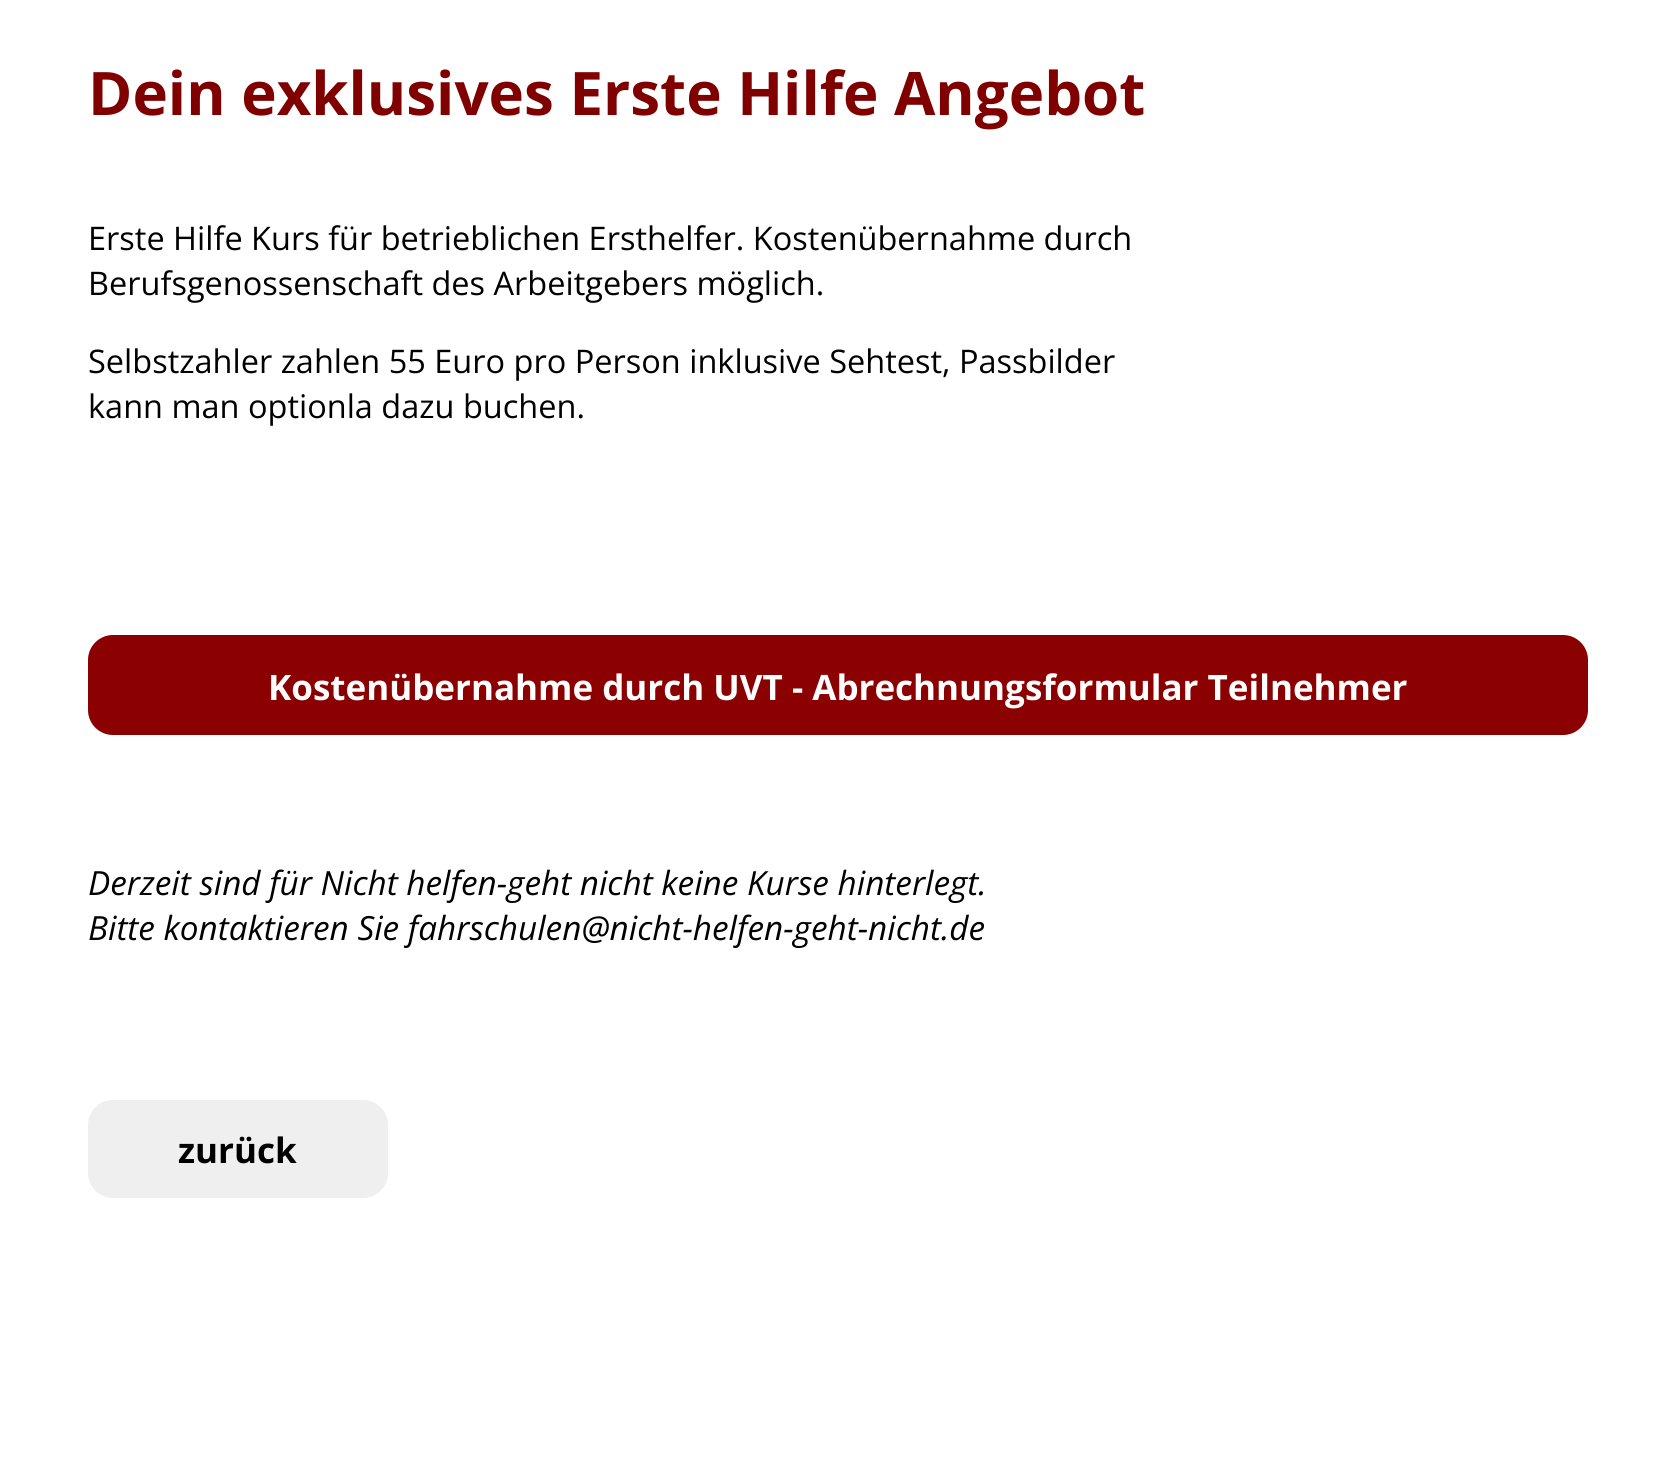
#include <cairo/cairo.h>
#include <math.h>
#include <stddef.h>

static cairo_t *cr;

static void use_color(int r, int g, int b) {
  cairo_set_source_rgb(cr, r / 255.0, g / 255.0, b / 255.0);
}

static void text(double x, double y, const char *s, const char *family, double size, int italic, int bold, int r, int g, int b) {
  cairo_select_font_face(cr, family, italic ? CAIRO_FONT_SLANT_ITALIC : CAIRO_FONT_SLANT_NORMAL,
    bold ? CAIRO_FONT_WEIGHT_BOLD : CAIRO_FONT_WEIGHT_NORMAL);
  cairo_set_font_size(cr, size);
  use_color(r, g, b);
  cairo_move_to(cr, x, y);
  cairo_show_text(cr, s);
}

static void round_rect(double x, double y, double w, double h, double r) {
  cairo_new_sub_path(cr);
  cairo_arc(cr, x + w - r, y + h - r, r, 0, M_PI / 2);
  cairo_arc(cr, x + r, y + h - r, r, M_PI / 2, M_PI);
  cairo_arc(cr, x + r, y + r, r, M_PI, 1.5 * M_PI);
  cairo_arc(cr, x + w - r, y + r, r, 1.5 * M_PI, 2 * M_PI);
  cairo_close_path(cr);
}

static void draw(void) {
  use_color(255, 255, 255);
  cairo_paint(cr);
  use_color(139, 0, 0);
  round_rect(88, 635, 1500, 100, 25);
  cairo_fill(cr);
  use_color(239, 239, 239);
  round_rect(88, 1100, 300, 98, 25);
  cairo_fill(cr);
  text(88, 115, "Dein exklusives Erste Hilfe Angebot", "Open Sans", 60, 0, 1, 128, 0, 0);
  text(88, 250, "Erste Hilfe Kurs für betrieblichen Ersthelfer. Kostenübernahme durch", "Open Sans", 32.5, 0, 0, 0, 0, 0);
  text(88, 295, "Berufsgenossenschaft des Arbeitgebers möglich.", "Open Sans", 32.5, 0, 0, 0, 0, 0);
  text(88, 373, "Selbstzahler zahlen 55 Euro pro Person inklusive Sehtest, Passbilder", "Open Sans", 32.5, 0, 0, 0, 0, 0);
  text(88, 418, "kann man optionla dazu buchen.", "Open Sans", 32.5, 0, 0, 0, 0, 0);
  text(268, 700, "Kostenübernahme durch UVT - Abrechnungsformular Teilnehmer", "Open Sans", 35, 0, 1, 255, 255, 255);
  text(88, 895, "Derzeit sind für Nicht helfen-geht nicht keine Kurse hinterlegt.", "Open Sans", 33.3, 1, 0, 0, 0, 0);
  text(88, 940, "Bitte kontaktieren Sie fahrschulen@nicht-helfen-geht-nicht.de", "Open Sans", 33.3, 1, 0, 0, 0, 0);
  text(178, 1163, "zurück", "Open Sans", 35, 0, 1, 0, 0, 0);
}

int main(void) {
  cairo_surface_t *surface = cairo_image_surface_create(CAIRO_FORMAT_RGB24, 1673, 1477);
  cr = cairo_create(surface);
  cairo_font_options_t *options = cairo_font_options_create();
  cairo_font_options_set_hint_metrics(options, CAIRO_HINT_METRICS_OFF);
  cairo_font_options_set_hint_style(options, CAIRO_HINT_STYLE_NONE);
  cairo_set_font_options(cr, options);
  cairo_set_miter_limit(cr, 4);
  draw();
  cairo_surface_write_to_png(surface, "out.png");
  cairo_font_options_destroy(options);
  cairo_destroy(cr);
  cairo_surface_destroy(surface);
  return 0;
}
